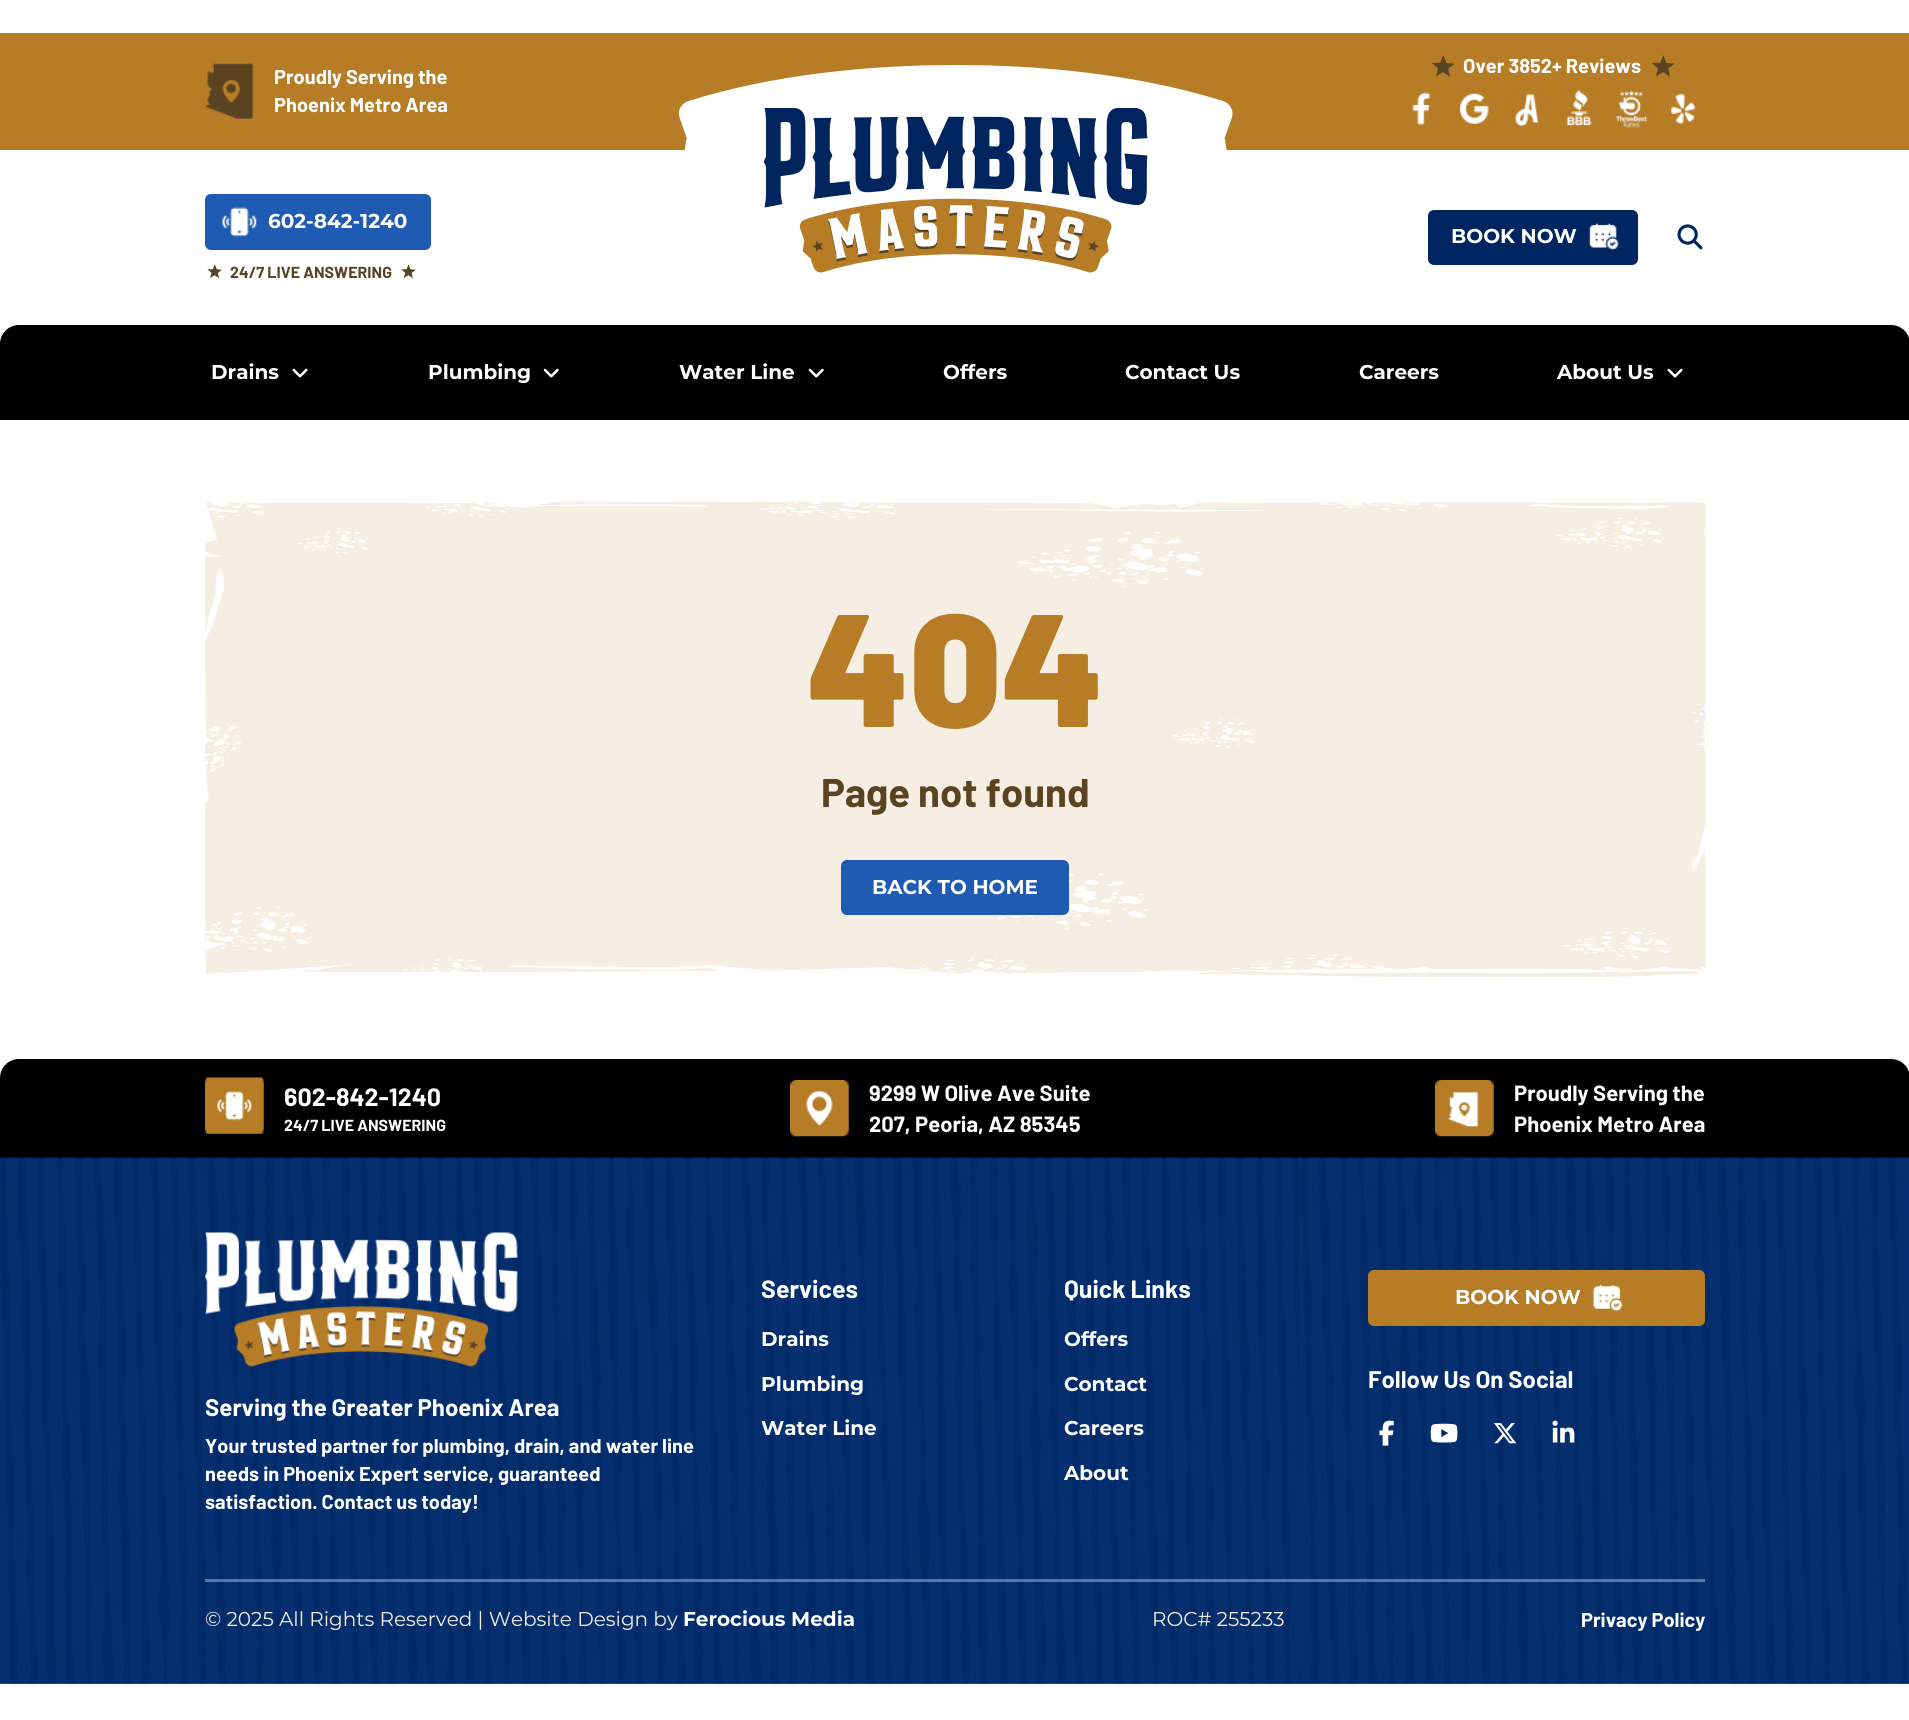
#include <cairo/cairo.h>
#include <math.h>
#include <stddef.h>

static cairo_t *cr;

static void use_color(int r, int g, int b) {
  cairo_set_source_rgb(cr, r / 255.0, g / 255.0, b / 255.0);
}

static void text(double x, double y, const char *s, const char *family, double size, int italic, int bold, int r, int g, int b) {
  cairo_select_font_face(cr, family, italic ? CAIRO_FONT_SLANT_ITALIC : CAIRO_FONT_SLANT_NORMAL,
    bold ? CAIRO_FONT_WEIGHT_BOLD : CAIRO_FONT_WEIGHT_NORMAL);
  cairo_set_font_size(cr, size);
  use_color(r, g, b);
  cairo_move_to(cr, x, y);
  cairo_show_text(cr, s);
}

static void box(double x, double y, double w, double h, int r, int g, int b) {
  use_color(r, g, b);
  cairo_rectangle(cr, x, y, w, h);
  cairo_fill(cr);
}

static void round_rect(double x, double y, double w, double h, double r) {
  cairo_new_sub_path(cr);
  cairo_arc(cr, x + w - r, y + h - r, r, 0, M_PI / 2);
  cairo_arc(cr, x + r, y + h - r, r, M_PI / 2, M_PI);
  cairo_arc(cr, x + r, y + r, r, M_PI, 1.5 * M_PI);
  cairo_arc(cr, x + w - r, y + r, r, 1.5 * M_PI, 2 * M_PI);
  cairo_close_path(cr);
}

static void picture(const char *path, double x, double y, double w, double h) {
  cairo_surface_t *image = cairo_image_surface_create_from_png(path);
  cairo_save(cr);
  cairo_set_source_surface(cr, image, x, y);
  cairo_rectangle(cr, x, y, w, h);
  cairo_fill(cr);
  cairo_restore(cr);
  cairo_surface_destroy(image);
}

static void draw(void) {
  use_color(255, 255, 255);
  cairo_paint(cr);
  box(0, 1683, 1909, 1, 43, 75, 125);
  box(0, 33, 1909, 117, 182, 124, 38);
  picture("img_01.png", 205, 63, 49, 56);
  picture("img_02.png", 679, 65, 554, 85);
  picture("img_03.png", 1432, 55, 23, 22);
  picture("img_03.png", 1652, 55, 23, 22);
  picture("img_04.png", 1412, 89, 284, 39);
  use_color(31, 91, 178);
  round_rect(205, 194, 226, 56, 6);
  cairo_fill(cr);
  picture("img_05.png", 222, 207, 35, 30);
  picture("img_06.png", 207, 264, 15, 14);
  picture("img_07.png", 401, 264, 15, 15);
  picture("img_08.png", 764, 108, 384, 165);
  use_color(0, 38, 98);
  round_rect(1428, 210, 210, 55, 6);
  cairo_fill(cr);
  picture("img_09.png", 1588, 223, 31, 28);
  picture("img_10.png", 1677, 224, 26, 26);
  use_color(0, 0, 0);
  cairo_new_path(cr);
  cairo_move_to(cr, 19, 325);
  cairo_line_to(cr, 1891, 325);
  cairo_curve_to(cr, 1901.5, 325, 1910, 333.5, 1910, 344);
  cairo_line_to(cr, 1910, 420);
  cairo_line_to(cr, 0, 420);
  cairo_line_to(cr, 0, 344);
  cairo_curve_to(cr, 0, 333.5, 8.5, 325, 19, 325);
  cairo_close_path(cr);
  cairo_fill(cr);
  picture("img_11.png", 292, 368, 16, 10);
  picture("img_12.png", 543, 368, 16, 10);
  picture("img_12.png", 808, 368, 16, 10);
  picture("img_11.png", 1667, 368, 16, 10);
  picture("img_13.png", 205, 501, 1500, 476);
  use_color(31, 91, 178);
  round_rect(841, 860, 228, 55, 6);
  cairo_fill(cr);
  use_color(0, 0, 0);
  cairo_new_path(cr);
  cairo_move_to(cr, 19, 1059);
  cairo_line_to(cr, 1891, 1059);
  cairo_curve_to(cr, 1901.5, 1059, 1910, 1067.5, 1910, 1078);
  cairo_line_to(cr, 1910, 1158);
  cairo_line_to(cr, 0, 1158);
  cairo_line_to(cr, 0, 1078);
  cairo_curve_to(cr, 0, 1067.5, 8.5, 1059, 19, 1059);
  cairo_close_path(cr);
  cairo_fill(cr);
  picture("img_14.png", 205, 1077, 59, 57);
  picture("img_15.png", 790, 1080, 59, 57);
  picture("img_16.png", 1435, 1080, 59, 57);
  picture("img_17.png", 0, 1157, 1909, 527);
  use_color(182, 124, 38);
  round_rect(1368, 1270, 337, 56, 6);
  cairo_fill(cr);
  picture("img_18.png", 1592, 1284, 31, 28);
  picture("img_19.png", 1379, 1420, 15, 26);
  picture("img_20.png", 1430, 1423, 28, 20);
  picture("img_21.png", 1494, 1423, 23, 21);
  picture("img_22.png", 1552, 1420, 23, 23);
  picture("img_23.png", 205, 1232, 313, 135);
  cairo_set_source_rgba(cr, 1, 1, 1, 0.35);
  cairo_rectangle(cr, 205, 1579, 1500, 3);
  cairo_fill(cr);
  text(274, 84, "Proudly Serving the", "Barlow", 20, 0, 1, 255, 255, 255);
  text(274, 112, "Phoenix Metro Area", "Barlow", 20, 0, 1, 255, 255, 255);
  text(1463, 73, "Over 3852+ Reviews", "Barlow", 20, 0, 1, 255, 255, 255);
  text(268, 228, "602-842-1240", "Montserrat", 20, 0, 1, 255, 255, 255);
  text(230, 278, "24/7 LIVE ANSWERING", "Barlow", 16, 0, 1, 89, 67, 33);
  text(1451, 243, "BOOK NOW", "Montserrat", 20, 0, 1, 255, 255, 255);
  text(211, 379, "Drains", "Montserrat", 20, 0, 1, 255, 255, 255);
  text(428, 379, "Plumbing", "Montserrat", 20, 0, 1, 255, 255, 255);
  text(679, 379, "Water Line", "Montserrat", 20, 0, 1, 255, 255, 255);
  text(943, 379, "Offers", "Montserrat", 20, 0, 1, 255, 255, 255);
  text(1125, 379, "Contact Us", "Montserrat", 20, 0, 1, 255, 255, 255);
  text(1359, 379, "Careers", "Montserrat", 20, 0, 1, 255, 255, 255);
  text(1557, 379, "About Us", "Montserrat", 20, 0, 1, 255, 255, 255);
  text(807, 727, "404", "Barlow Black", 160, 0, 0, 182, 124, 38);
  text(821, 807, "Page not found", "Barlow", 40, 0, 1, 89, 67, 33);
  text(872, 894, "BACK TO HOME", "Montserrat", 20, 0, 1, 255, 255, 255);
  text(284, 1106, "602-842-1240", "Barlow", 25, 0, 1, 255, 255, 255);
  text(284, 1131, "24/7 LIVE ANSWERING", "Barlow", 16, 0, 1, 255, 255, 255);
  text(869, 1101, "9299 W Olive Ave Suite", "Barlow", 22, 0, 1, 255, 255, 255);
  text(869, 1132, "207, Peoria, AZ 85345", "Barlow", 22, 0, 1, 255, 255, 255);
  text(1514, 1101, "Proudly Serving the", "Barlow", 22, 0, 1, 255, 255, 255);
  text(1514, 1132, "Phoenix Metro Area", "Barlow", 22, 0, 1, 255, 255, 255);
  text(761, 1298, "Services", "Barlow", 25, 0, 1, 255, 255, 255);
  text(761, 1346, "Drains", "Montserrat", 20, 0, 1, 255, 255, 255);
  text(761, 1391, "Plumbing", "Montserrat", 20, 0, 1, 255, 255, 255);
  text(761, 1435, "Water Line", "Montserrat", 20, 0, 1, 255, 255, 255);
  text(1064, 1298, "Quick Links", "Barlow", 25, 0, 1, 255, 255, 255);
  text(1064, 1346, "Offers", "Montserrat", 20, 0, 1, 255, 255, 255);
  text(1064, 1391, "Contact", "Montserrat", 20, 0, 1, 255, 255, 255);
  text(1064, 1435, "Careers", "Montserrat", 20, 0, 1, 255, 255, 255);
  text(1064, 1480, "About", "Montserrat", 20, 0, 1, 255, 255, 255);
  text(1455, 1304, "BOOK NOW", "Montserrat", 20, 0, 1, 255, 255, 255);
  text(1368, 1388, "Follow Us On Social", "Barlow", 24, 0, 1, 255, 255, 255);
  text(205, 1416, "Serving the Greater Phoenix Area", "Barlow", 24, 0, 1, 255, 255, 255);
  text(205, 1453, "Your trusted partner for plumbing, drain, and water line", "Barlow", 20, 0, 1, 255, 255, 255);
  text(205, 1481, "needs in Phoenix Expert service, guaranteed", "Barlow", 20, 0, 1, 255, 255, 255);
  text(205, 1509, "satisfaction. Contact us today!", "Barlow", 20, 0, 1, 255, 255, 255);
  text(205, 1626, "© 2025 All Rights Reserved | Website Design by", "Montserrat", 20, 0, 0, 246, 238, 227);
  text(683, 1626, "Ferocious Media", "Montserrat", 20, 0, 1, 255, 255, 255);
  text(1152, 1626, "ROC# 255233", "Montserrat", 20, 0, 0, 246, 238, 227);
  text(1581, 1627, "Privacy Policy", "Barlow", 20, 0, 1, 255, 255, 255);
}

int main(void) {
  cairo_surface_t *surface = cairo_image_surface_create(CAIRO_FORMAT_RGB24, 1909, 1720);
  cr = cairo_create(surface);
  cairo_font_options_t *options = cairo_font_options_create();
  cairo_font_options_set_hint_metrics(options, CAIRO_HINT_METRICS_OFF);
  cairo_font_options_set_hint_style(options, CAIRO_HINT_STYLE_NONE);
  cairo_set_font_options(cr, options);
  cairo_set_miter_limit(cr, 4);
  draw();
  cairo_surface_write_to_png(surface, "out.png");
  cairo_font_options_destroy(options);
  cairo_destroy(cr);
  cairo_surface_destroy(surface);
  return 0;
}
